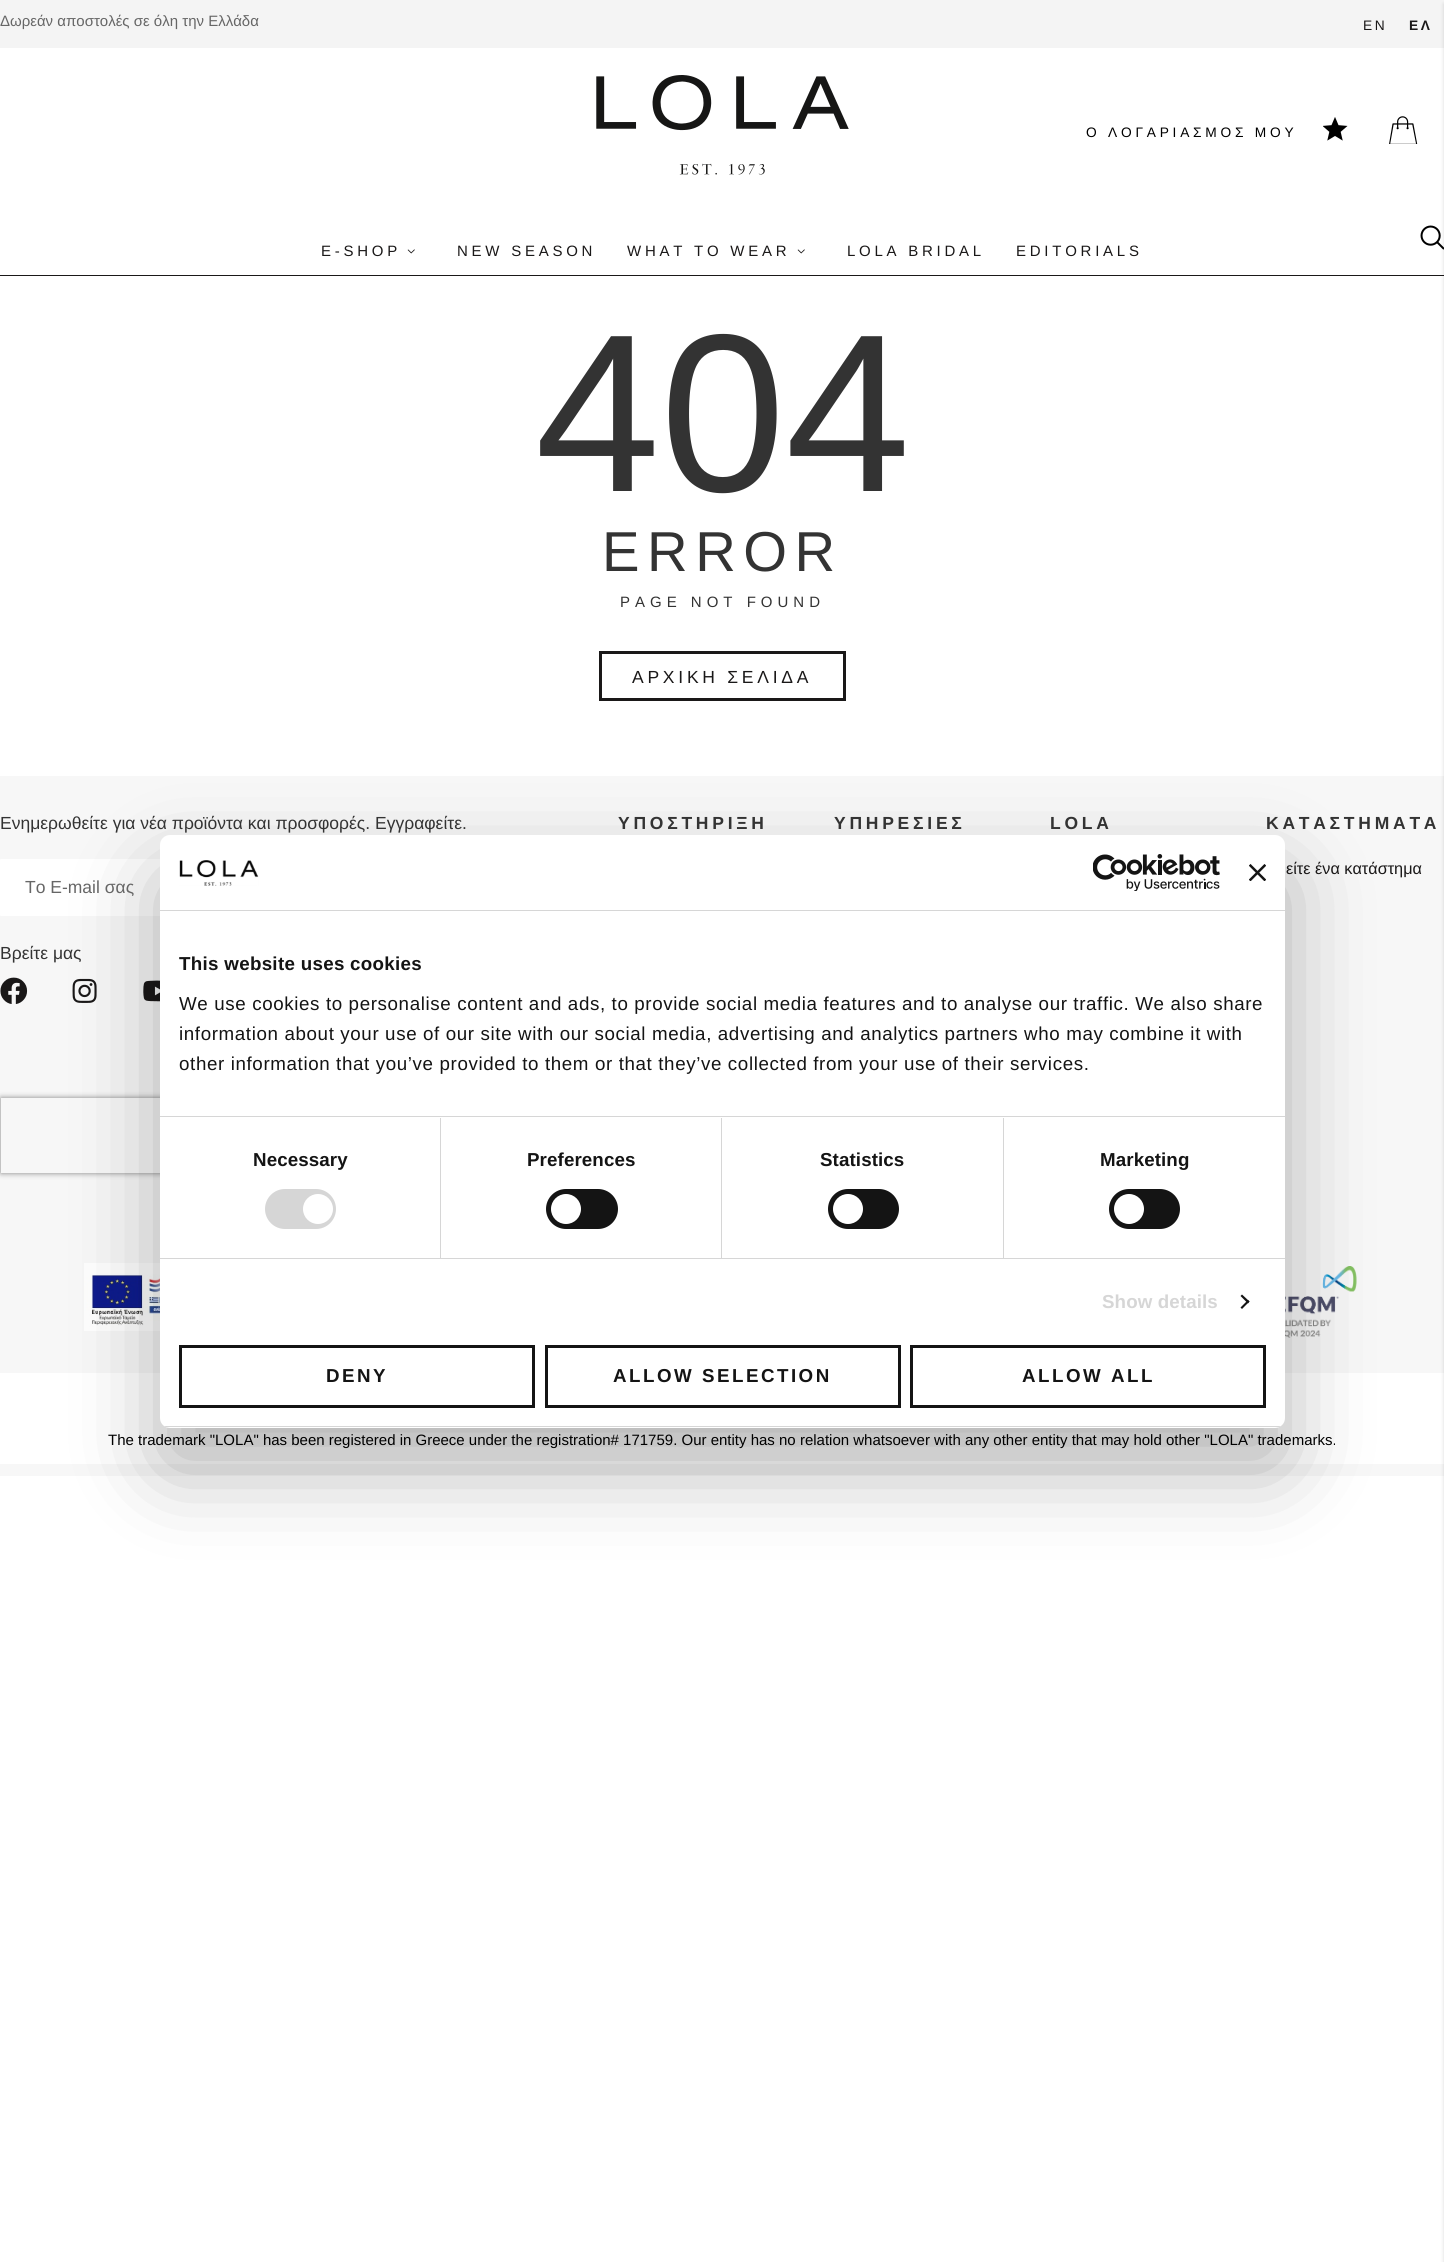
#include <cairo/cairo.h>
#include <math.h>
#include <stddef.h>

static cairo_t *cr;

static void use_color(int r, int g, int b) {
  cairo_set_source_rgb(cr, r / 255.0, g / 255.0, b / 255.0);
}

static void text(double x, double y, const char *s, const char *family, double size, int italic, int bold, int r, int g, int b) {
  cairo_select_font_face(cr, family, italic ? CAIRO_FONT_SLANT_ITALIC : CAIRO_FONT_SLANT_NORMAL,
    bold ? CAIRO_FONT_WEIGHT_BOLD : CAIRO_FONT_WEIGHT_NORMAL);
  cairo_set_font_size(cr, size);
  use_color(r, g, b);
  cairo_move_to(cr, x, y);
  cairo_show_text(cr, s);
}

static void spaced_text(double x, double y, const char *s, double letter, double word) {
  cairo_move_to(cr, x, y);
  while (*s) {
    char ch[5] = {0};
    int n = 0;
    do ch[n++] = *s++; while ((*s & 0xC0) == 0x80);
    cairo_show_text(cr, ch);
    cairo_rel_move_to(cr, letter + word * (*ch == ' '), 0);
  }
}

static void box(double x, double y, double w, double h, int r, int g, int b) {
  use_color(r, g, b);
  cairo_rectangle(cr, x, y, w, h);
  cairo_fill(cr);
}

static void round_rect(double x, double y, double w, double h, double r) {
  cairo_new_sub_path(cr);
  cairo_arc(cr, x + w - r, y + h - r, r, 0, M_PI / 2);
  cairo_arc(cr, x + r, y + h - r, r, M_PI / 2, M_PI);
  cairo_arc(cr, x + r, y + r, r, M_PI, 1.5 * M_PI);
  cairo_arc(cr, x + w - r, y + r, r, 1.5 * M_PI, 2 * M_PI);
  cairo_close_path(cr);
}

static void shadow(double x, double y, double w, double h, double r, double blur, double alpha) {
  cairo_push_group_with_content(cr, CAIRO_CONTENT_ALPHA);
  cairo_set_operator(cr, CAIRO_OPERATOR_SOURCE);
  for (int i = 15; i >= -15 && fmin(w, h) + blur * i / 3 > 0; i -= 2) {
    double e = blur * i / 6;
    cairo_set_source_rgba(cr, 0, 0, 0, alpha * erfc((i - 1) / 8.5) / 2);
    round_rect(x - e, y - e, w + 2 * e, h + 2 * e, fmax(0, fmin(r + e + blur * .6, fmin(w, h) / 2 + e)));
    cairo_fill(cr);
  }
  cairo_pattern_t *soft = cairo_pop_group(cr);
  cairo_mask(cr, soft);
  cairo_pattern_destroy(soft);
}

static void picture(const char *path, double x, double y, double w, double h) {
  cairo_surface_t *image = cairo_image_surface_create_from_png(path);
  cairo_save(cr);
  cairo_set_source_surface(cr, image, x, y);
  cairo_rectangle(cr, x, y, w, h);
  cairo_fill(cr);
  cairo_restore(cr);
  cairo_surface_destroy(image);
}

static void draw(void) {
  use_color(255, 255, 255);
  cairo_paint(cr);
  box(0, 0, 1444, 48, 244, 244, 244);
  picture("img_01.png", 596, 75, 253, 100);
  picture("img_02.png", 1323, 117, 25, 24);
  picture("img_03.png", 1389, 116, 29, 28);
  box(0, 275, 1445, 1, 26, 24, 24);
  picture("img_05.png", 1420, 225, 24, 25);
  box(0, 776, 1444, 700, 247, 247, 247);
  box(0, 1373, 1444, 91, 255, 255, 255);
  use_color(0, 0, 0);
  shadow(1444, 4, 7, 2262, 0, 2, 0.15);
  box(1444, 0, 1, 2262, 255, 255, 255);
  picture("img_04.png", 407, 249, 8, 5);
  picture("img_04.png", 797, 249, 8, 5);
  cairo_rectangle(cr, 600.5, 652.5, 244, 47);
  use_color(26, 24, 24);
  cairo_set_line_width(cr, 3);
  cairo_stroke(cr);
  use_color(255, 255, 255);
  round_rect(0, 859, 335, 57, 1);
  cairo_fill(cr);
  cairo_save(cr);
  cairo_set_fill_rule(cr, CAIRO_FILL_RULE_EVEN_ODD);
  cairo_new_path(cr);
  cairo_move_to(cr, 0, 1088);
  cairo_line_to(cr, 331, 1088);
  cairo_line_to(cr, 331, 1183);
  cairo_line_to(cr, 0, 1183);
  cairo_close_path(cr);
  cairo_move_to(cr, 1, 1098);
  cairo_line_to(cr, 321, 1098);
  cairo_line_to(cr, 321, 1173);
  cairo_line_to(cr, 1, 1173);
  cairo_close_path(cr);
  cairo_clip(cr);
  use_color(128, 128, 128);
  shadow(1, 1098, 320, 75, 0, 3, 1);
  cairo_restore(cr);
  picture("img_06.png", 0, 977, 28, 27);
  picture("img_07.png", 72, 978, 25, 25);
  picture("img_08.png", 143, 980, 17, 22);
  picture("img_09.png", 84, 1263, 76, 68);
  picture("img_10.png", 1285, 1266, 72, 72);
  use_color(0, 0, 0);
  shadow(160, 875, 1125, 593, 10, 42.5, 0.3);
  use_color(255, 255, 255);
  round_rect(160, 835, 1125, 593, 10);
  cairo_fill(cr);
  box(160, 910, 1125, 1, 214, 214, 214);
  picture("img_11.png", 179, 860, 80, 26);
  picture("img_12.png", 1093, 854, 127, 37);
  picture("img_13.png", 1249, 864, 17, 17);
  box(160, 1116, 1125, 1, 214, 214, 214);
  box(160, 1258, 1125, 1, 214, 214, 214);
  box(440, 1118, 1, 140, 214, 214, 214);
  round_rect(265, 1189, 71, 40, 20);
  cairo_fill(cr);
  use_color(255, 255, 255);
  cairo_arc(cr, 318, 1209, 15, 0, 2 * M_PI);
  cairo_fill(cr);
  box(721, 1118, 1, 140, 214, 214, 214);
  use_color(20, 20, 20);
  round_rect(546, 1189, 72, 40, 20);
  cairo_fill(cr);
  use_color(255, 255, 255);
  cairo_arc(cr, 566, 1209, 15, 0, 2 * M_PI);
  cairo_fill(cr);
  box(1003, 1118, 1, 140, 214, 214, 214);
  use_color(20, 20, 20);
  round_rect(828, 1189, 71, 40, 20);
  cairo_fill(cr);
  use_color(255, 255, 255);
  cairo_arc(cr, 848, 1209, 15, 0, 2 * M_PI);
  cairo_fill(cr);
  use_color(20, 20, 20);
  round_rect(1109, 1189, 71, 40, 20);
  cairo_fill(cr);
  use_color(255, 255, 255);
  cairo_arc(cr, 1129, 1209, 15, 0, 2 * M_PI);
  cairo_fill(cr);
  use_color(20, 20, 20);
  cairo_new_path(cr);
  cairo_move_to(cr, 1242, 1294.5);
  cairo_line_to(cr, 1249.5, 1301.5);
  cairo_line_to(cr, 1248, 1303.5);
  cairo_line_to(cr, 1240.5, 1296);
  cairo_close_path(cr);
  cairo_fill(cr);
  cairo_new_path(cr);
  cairo_move_to(cr, 1248, 1300);
  cairo_line_to(cr, 1249.5, 1301.5);
  cairo_line_to(cr, 1242, 1309);
  cairo_line_to(cr, 1240.5, 1307.5);
  cairo_close_path(cr);
  cairo_fill(cr);
  cairo_save(cr);
  round_rect(160, 835, 1125, 593, 10);
  cairo_clip(cr);
  box(160, 1426, 1125, 1, 214, 214, 214);
  cairo_restore(cr);
  cairo_rectangle(cr, 180.5, 1346.5, 353, 60);
  cairo_stroke(cr);
  cairo_rectangle(cr, 546.5, 1346.5, 353, 60);
  cairo_stroke(cr);
  cairo_rectangle(cr, 911.5, 1346.5, 353, 60);
  cairo_stroke(cr);
  text(0, 26, "Δωρεάν αποστολές σε όλη την Ελλάδα", "Liberation Sans", 15, 0, 0, 102, 102, 102);
  cairo_set_font_size(cr, 13.75);
  use_color(26, 24, 24);
  spaced_text(1363, 30, "EN", 2.5, 0);
  cairo_select_font_face(cr, "Liberation Sans", CAIRO_FONT_SLANT_NORMAL, CAIRO_FONT_WEIGHT_BOLD);
  spaced_text(1409, 30, "ΕΛ", 2.5, 0);
  cairo_select_font_face(cr, "Liberation Sans", CAIRO_FONT_SLANT_NORMAL, CAIRO_FONT_WEIGHT_NORMAL);
  use_color(0, 0, 0);
  spaced_text(1086, 137, "Ο ΛΟΓΑΡΙΑΣΜΟΣ ΜΟΥ", 3.75, 0);
  cairo_set_font_size(cr, 15);
  use_color(26, 24, 24);
  spaced_text(321, 256, "E-SHOP", 3.75, 0);
  spaced_text(457, 256, "NEW SEASON", 3.75, 0);
  spaced_text(627, 256, "WHAT TO WEAR", 3.75, 0);
  spaced_text(847, 256, "LOLA BRIDAL", 3.75, 0);
  spaced_text(1016, 256, "EDITORIALS", 3.75, 0);
  text(535, 491, "404", "Liberation Sans", 225, 0, 0, 51, 51, 51);
  cairo_set_font_size(cr, 56.25);
  spaced_text(602, 571, "ERROR", 7.5, 0);
  cairo_set_font_size(cr, 15);
  spaced_text(620, 607, "PAGE NOT FOUND", 5, 0);
  cairo_set_font_size(cr, 17.5);
  use_color(26, 24, 24);
  spaced_text(632, 683, "ΑΡΧΙΚΗ ΣΕΛΙΔΑ", 3.75, 0);
  text(0, 829, "Ενημερωθείτε για νέα προϊόντα και προσφορές. Εγγραφείτε.", "Liberation Sans", 17.5, 0, 0, 51, 51, 51);
  text(25, 893, "Το E-mail σας", "Liberation Sans", 17.5, 0, 0, 102, 102, 102);
  text(0, 959, "Βρείτε μας", "Liberation Sans", 17.5, 0, 0, 51, 51, 51);
  cairo_select_font_face(cr, "Liberation Sans", CAIRO_FONT_SLANT_NORMAL, CAIRO_FONT_WEIGHT_BOLD);
  spaced_text(618, 829, "ΥΠΟΣΤΗΡΙΞΗ", 3.75, 0);
  spaced_text(834, 829, "ΥΠΗΡΕΣΙΕΣ", 3.75, 0);
  spaced_text(1050, 829, "LOLA", 3.75, 0);
  spaced_text(1266, 829, "ΚΑΤΑΣΤΗΜΑΤΑ", 3.75, 0);
  text(1286, 874, "είτε ένα κατάστημα", "Liberation Sans", 16.25, 0, 0, 26, 24, 24);
  text(108, 1445, "The trademark \"LOLA\" has been registered in Greece under the registration# 171759. Our entity has no relation whatsoever with any other entity that may hold other \"LOLA\" trademarks.", "Liberation Sans", 15, 0, 0, 0, 0, 0);
  cairo_select_font_face(cr, "Liberation Sans", CAIRO_FONT_SLANT_NORMAL, CAIRO_FONT_WEIGHT_BOLD);
  cairo_set_font_size(cr, 18.75);
  use_color(20, 20, 20);
  spaced_text(179, 970, "This website uses cookies", 0.3, 0);
  cairo_select_font_face(cr, "Liberation Sans", CAIRO_FONT_SLANT_NORMAL, CAIRO_FONT_WEIGHT_NORMAL);
  spaced_text(179, 1010, "We use cookies to personalise content and ads, to provide social media features and to analyse our traffic. We also share", 0.62, 0);
  spaced_text(179, 1040, "information about your use of our site with our social media, advertising and analytics partners who may combine it with", 0.62, 0);
  spaced_text(179, 1070, "other information that you’ve provided to them or that they’ve collected from your use of their services.", 0.62, 0);
  cairo_select_font_face(cr, "Liberation Sans", CAIRO_FONT_SLANT_NORMAL, CAIRO_FONT_WEIGHT_BOLD);
  spaced_text(253, 1166, "Necessary", 0.1, 0);
  spaced_text(527, 1166, "Preferences", 0.1, 0);
  spaced_text(820, 1166, "Statistics", 0.1, 0);
  spaced_text(1100, 1166, "Marketing", 0.1, 0);
  use_color(214, 214, 214);
  spaced_text(1102, 1308, "Show details", 0.1, 0);
  use_color(20, 20, 20);
  spaced_text(326, 1382, "DENY", 2.5, 0);
  spaced_text(613, 1382, "ALLOW SELECTION", 2.5, 0);
  spaced_text(1022, 1382, "ALLOW ALL", 2.5, 0);
}

int main(void) {
  cairo_surface_t *surface = cairo_image_surface_create(CAIRO_FORMAT_RGB24, 1445, 2262);
  cr = cairo_create(surface);
  cairo_font_options_t *options = cairo_font_options_create();
  cairo_font_options_set_hint_metrics(options, CAIRO_HINT_METRICS_OFF);
  cairo_font_options_set_hint_style(options, CAIRO_HINT_STYLE_NONE);
  cairo_set_font_options(cr, options);
  cairo_set_miter_limit(cr, 4);
  draw();
  cairo_surface_write_to_png(surface, "out.png");
  cairo_font_options_destroy(options);
  cairo_destroy(cr);
  cairo_surface_destroy(surface);
  return 0;
}
